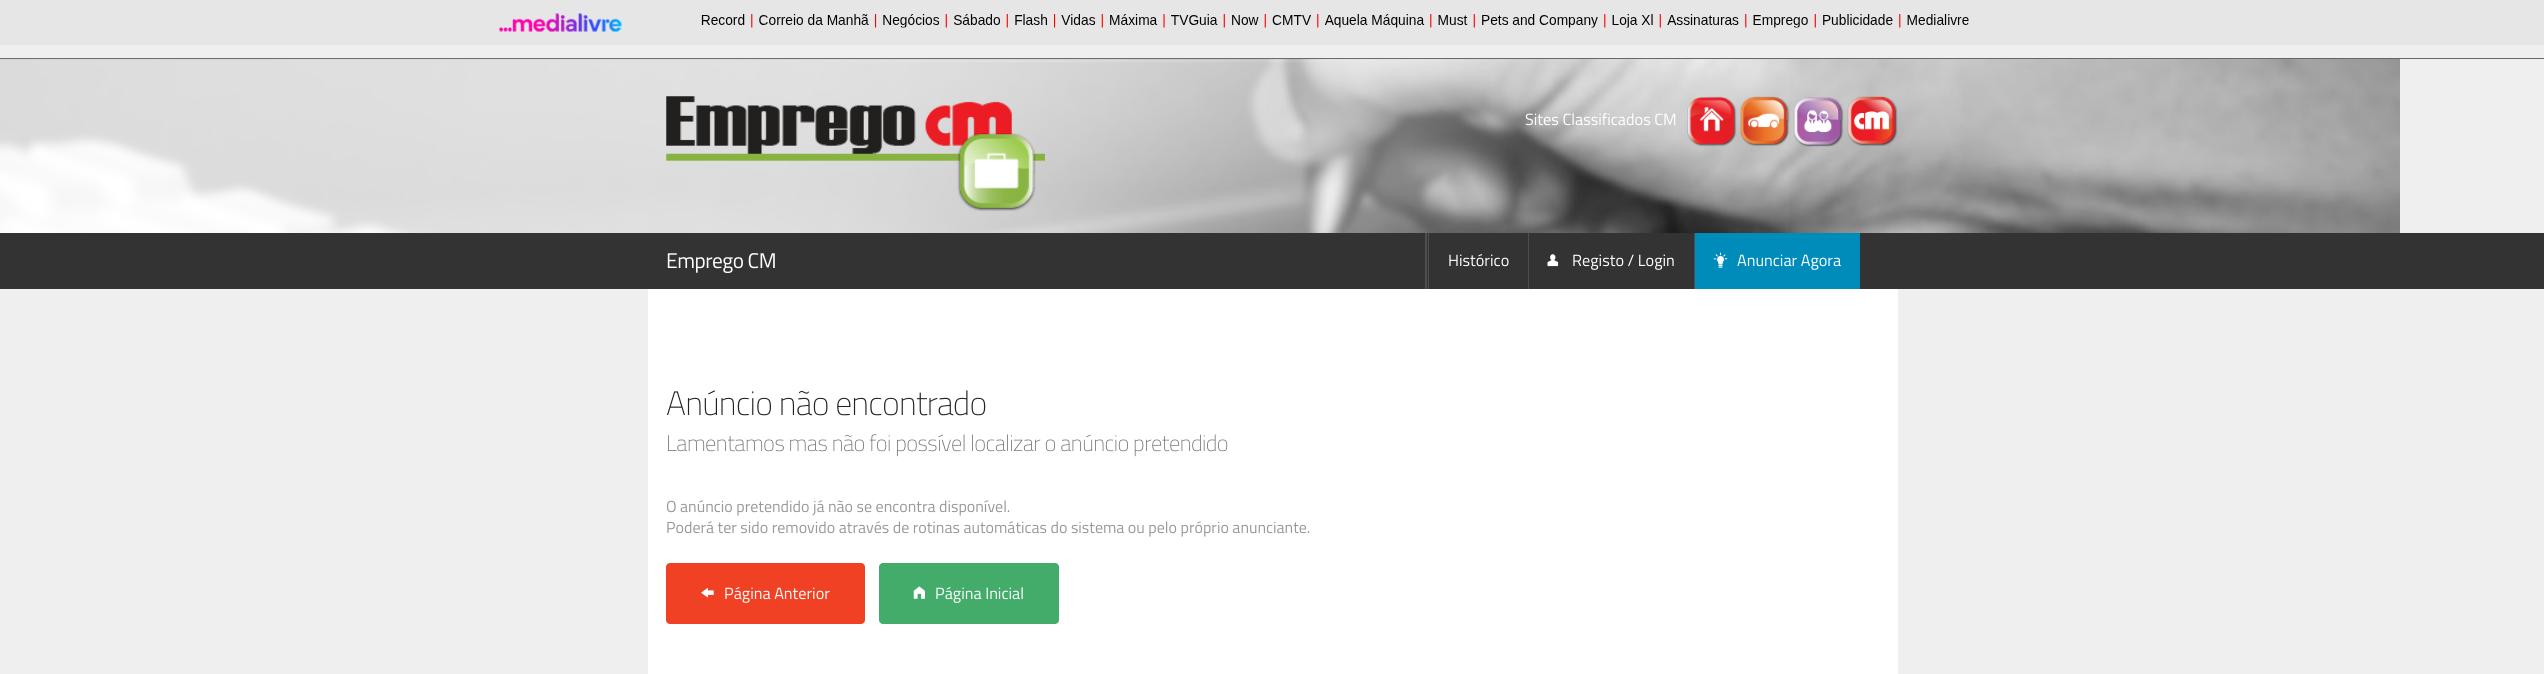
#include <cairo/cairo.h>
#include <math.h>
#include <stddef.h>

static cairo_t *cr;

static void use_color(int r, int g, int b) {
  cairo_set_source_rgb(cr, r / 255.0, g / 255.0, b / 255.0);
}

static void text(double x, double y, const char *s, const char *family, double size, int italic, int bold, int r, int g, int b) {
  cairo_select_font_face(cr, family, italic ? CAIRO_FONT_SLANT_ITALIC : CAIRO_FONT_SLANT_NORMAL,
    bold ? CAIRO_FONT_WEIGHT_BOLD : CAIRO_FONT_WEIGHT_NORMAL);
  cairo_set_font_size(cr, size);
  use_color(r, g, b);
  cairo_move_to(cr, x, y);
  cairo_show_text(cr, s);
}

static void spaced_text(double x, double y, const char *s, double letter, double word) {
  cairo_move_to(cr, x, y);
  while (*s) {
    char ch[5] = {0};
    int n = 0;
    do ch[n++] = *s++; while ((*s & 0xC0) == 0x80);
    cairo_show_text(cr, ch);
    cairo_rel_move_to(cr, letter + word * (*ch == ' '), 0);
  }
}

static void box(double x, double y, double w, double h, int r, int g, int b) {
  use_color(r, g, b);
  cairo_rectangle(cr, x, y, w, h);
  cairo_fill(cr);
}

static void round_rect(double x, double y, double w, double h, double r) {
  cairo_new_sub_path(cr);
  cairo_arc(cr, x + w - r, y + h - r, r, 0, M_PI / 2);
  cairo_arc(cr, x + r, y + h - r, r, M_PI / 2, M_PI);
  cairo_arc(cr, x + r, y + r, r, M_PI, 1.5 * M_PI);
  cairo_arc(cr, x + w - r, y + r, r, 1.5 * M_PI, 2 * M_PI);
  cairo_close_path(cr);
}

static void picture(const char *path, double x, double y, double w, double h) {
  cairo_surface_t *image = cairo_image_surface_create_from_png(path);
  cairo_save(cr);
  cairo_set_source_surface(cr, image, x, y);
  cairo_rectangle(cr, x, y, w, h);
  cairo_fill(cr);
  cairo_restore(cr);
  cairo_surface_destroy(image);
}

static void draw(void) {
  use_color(239, 239, 239);
  cairo_paint(cr);
  picture("img_01.png", 0, 0, 2544, 45);
  box(0, 58, 2544, 1, 102, 102, 102);
  picture("img_03.png", 0, 59, 2400, 174);
  picture("img_02.png", 0, 58, 1789, 175);
  picture("img_04.png", 666, 96, 379, 115);
  picture("img_05.png", 1687, 96, 50, 51);
  picture("img_06.png", 1740, 96, 50, 50);
  picture("img_07.png", 1793, 97, 51, 50);
  picture("img_08.png", 1847, 96, 51, 50);
  box(0, 233, 2544, 56, 51, 51, 51);
  box(1425, 233, 2, 56, 78, 78, 78);
  box(1428, 233, 1, 56, 78, 78, 78);
  box(1528, 233, 1, 56, 78, 78, 78);
  picture("img_09.png", 1547, 254, 12, 13);
  box(1694, 233, 1, 56, 78, 78, 78);
  box(1695, 233, 165, 56, 0, 140, 186);
  picture("img_10.png", 1713, 252, 15, 16);
  box(648, 289, 1250, 385, 255, 255, 255);
  use_color(240, 65, 36);
  round_rect(666, 563, 199, 61, 4);
  cairo_fill(cr);
  picture("img_11.png", 701, 588, 13, 10);
  use_color(67, 172, 106);
  round_rect(879, 563, 180, 61, 4);
  cairo_fill(cr);
  picture("img_12.png", 913, 586, 12, 13);
  text(1525, 125, "Sites Classificados CM", "Titillium Web", 16.25, 0, 0, 255, 255, 255);
  cairo_set_font_size(cr, 21.25);
  spaced_text(666, 268, "Emprego CM", -0.5, 0);
  text(1448, 266, "Histórico", "Titillium Web", 16.25, 0, 0, 255, 255, 255);
  text(1572, 266, "Registo / Login", "Titillium Web", 16.25, 0, 0, 255, 255, 255);
  text(1737, 266, "Anunciar Agora", "Titillium Web", 16.25, 0, 0, 255, 255, 255);
  cairo_select_font_face(cr, "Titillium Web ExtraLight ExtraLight", CAIRO_FONT_SLANT_NORMAL, CAIRO_FONT_WEIGHT_NORMAL);
  cairo_set_font_size(cr, 33.75);
  use_color(34, 34, 34);
  spaced_text(666, 415, "Anúncio não encontrado", -0.8, 0);
  cairo_set_font_size(cr, 22.5);
  use_color(111, 111, 111);
  spaced_text(666, 451, "Lamentamos mas não foi possível localizar o anúncio pretendido", -0.55, 0);
  text(666, 512, "O anúncio pretendido já não se encontra disponível.", "Titillium Web", 16, 0, 0, 153, 153, 153);
  text(666, 533, "Poderá ter sido removido através de rotinas automáticas do sistema ou pelo próprio anunciante.", "Titillium Web", 16, 0, 0, 153, 153, 153);
  text(724, 599, "Página Anterior", "Titillium Web", 16.25, 0, 0, 255, 255, 255);
  text(935, 599, "Página Inicial", "Titillium Web", 16.25, 0, 0, 255, 255, 255);
}

int main(void) {
  cairo_surface_t *surface = cairo_image_surface_create(CAIRO_FORMAT_RGB24, 2544, 674);
  cr = cairo_create(surface);
  cairo_font_options_t *options = cairo_font_options_create();
  cairo_font_options_set_hint_metrics(options, CAIRO_HINT_METRICS_OFF);
  cairo_font_options_set_hint_style(options, CAIRO_HINT_STYLE_NONE);
  cairo_set_font_options(cr, options);
  cairo_set_miter_limit(cr, 4);
  draw();
  cairo_surface_write_to_png(surface, "out.png");
  cairo_font_options_destroy(options);
  cairo_destroy(cr);
  cairo_surface_destroy(surface);
  return 0;
}
